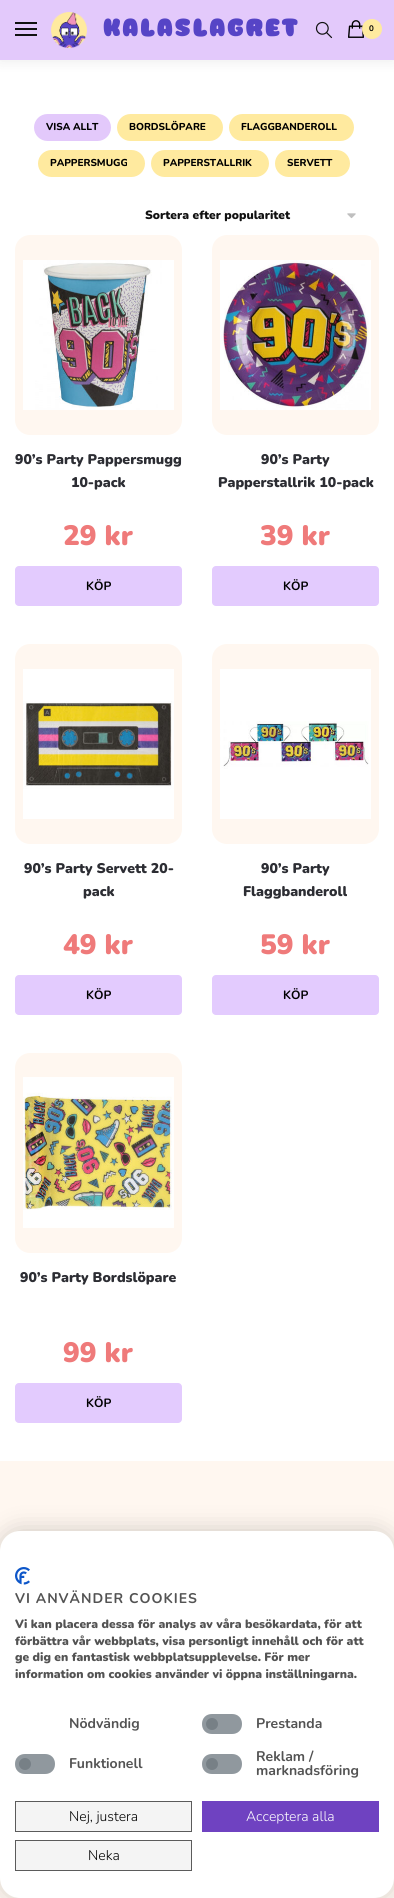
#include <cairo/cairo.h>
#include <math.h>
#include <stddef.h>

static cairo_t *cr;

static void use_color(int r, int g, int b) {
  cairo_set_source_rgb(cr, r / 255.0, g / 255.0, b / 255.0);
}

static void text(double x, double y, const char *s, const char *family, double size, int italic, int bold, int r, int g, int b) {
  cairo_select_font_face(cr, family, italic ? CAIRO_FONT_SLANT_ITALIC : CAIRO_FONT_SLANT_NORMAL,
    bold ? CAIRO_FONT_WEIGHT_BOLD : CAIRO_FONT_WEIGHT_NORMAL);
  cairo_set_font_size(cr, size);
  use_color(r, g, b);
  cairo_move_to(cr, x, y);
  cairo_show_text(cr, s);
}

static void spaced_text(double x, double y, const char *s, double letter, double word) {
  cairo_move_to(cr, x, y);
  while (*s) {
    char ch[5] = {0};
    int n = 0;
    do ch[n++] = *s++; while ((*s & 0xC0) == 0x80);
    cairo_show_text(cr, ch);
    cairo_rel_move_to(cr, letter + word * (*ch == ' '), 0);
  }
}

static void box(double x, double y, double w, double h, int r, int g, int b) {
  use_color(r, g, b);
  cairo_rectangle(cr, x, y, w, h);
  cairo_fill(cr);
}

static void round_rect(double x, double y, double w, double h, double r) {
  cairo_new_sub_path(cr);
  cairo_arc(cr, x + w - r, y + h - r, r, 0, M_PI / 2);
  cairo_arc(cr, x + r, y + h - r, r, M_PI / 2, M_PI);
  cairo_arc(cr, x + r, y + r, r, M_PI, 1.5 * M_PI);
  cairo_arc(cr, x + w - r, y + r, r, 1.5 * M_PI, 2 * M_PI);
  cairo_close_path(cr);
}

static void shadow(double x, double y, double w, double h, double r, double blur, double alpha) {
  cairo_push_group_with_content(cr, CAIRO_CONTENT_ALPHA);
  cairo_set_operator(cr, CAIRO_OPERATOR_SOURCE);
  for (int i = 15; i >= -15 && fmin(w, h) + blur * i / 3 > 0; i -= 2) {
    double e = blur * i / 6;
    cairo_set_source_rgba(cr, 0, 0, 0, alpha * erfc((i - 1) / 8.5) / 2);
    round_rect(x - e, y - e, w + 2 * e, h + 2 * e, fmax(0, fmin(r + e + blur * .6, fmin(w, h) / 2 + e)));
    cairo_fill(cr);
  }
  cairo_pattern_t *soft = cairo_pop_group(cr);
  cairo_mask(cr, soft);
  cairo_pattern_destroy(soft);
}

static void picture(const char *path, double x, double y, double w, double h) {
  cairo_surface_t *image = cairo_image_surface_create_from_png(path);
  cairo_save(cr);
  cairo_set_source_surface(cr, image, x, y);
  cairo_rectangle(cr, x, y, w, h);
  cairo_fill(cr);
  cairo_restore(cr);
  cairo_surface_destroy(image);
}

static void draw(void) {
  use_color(255, 255, 255);
  cairo_paint(cr);
  use_color(0, 0, 0);
  shadow(0, 1, 394, 60, 0, 7.5, 0.08);
  box(0, 0, 394, 60, 227, 201, 251);
  box(15, 22, 22, 2, 17, 17, 17);
  box(15, 28, 22, 2, 17, 17, 17);
  box(15, 34, 22, 2, 17, 17, 17);
  picture("img_01.png", 51, 12, 36, 36);
  picture("img_02.png", 315, 21, 18, 18);
  picture("img_03.png", 348, 20, 16, 18);
  use_color(255, 234, 159);
  cairo_arc(cr, 372, 29, 9.5, 0, 2 * M_PI);
  cairo_fill_preserve(cr);
  cairo_set_line_width(cr, 1);
  cairo_stroke(cr);
  use_color(227, 201, 251);
  round_rect(34, 114, 77, 27, 13.5);
  cairo_fill(cr);
  use_color(255, 234, 159);
  round_rect(117, 114, 106, 27, 13.5);
  cairo_fill(cr);
  round_rect(229, 114, 125, 27, 13.5);
  cairo_fill(cr);
  round_rect(38, 150, 107, 27, 13.5);
  cairo_fill(cr);
  round_rect(151, 150, 118, 27, 13.5);
  cairo_fill(cr);
  round_rect(275, 150, 75, 27, 13.5);
  cairo_fill(cr);
  picture("img_04.png", 347, 213, 9, 6);
  use_color(255, 247, 240);
  round_rect(15, 235, 167, 200, 15);
  cairo_fill(cr);
  picture("img_05.png", 23, 260, 151, 150);
  use_color(227, 203, 254);
  round_rect(15, 566, 167, 40, 4);
  cairo_fill(cr);
  use_color(255, 247, 240);
  round_rect(212, 235, 167, 200, 15);
  cairo_fill(cr);
  picture("img_06.png", 220, 260, 151, 150);
  use_color(227, 203, 254);
  round_rect(212, 566, 167, 40, 4);
  cairo_fill(cr);
  use_color(255, 247, 240);
  round_rect(15, 644, 167, 200, 15);
  cairo_fill(cr);
  picture("img_07.png", 23, 669, 151, 150);
  use_color(227, 203, 254);
  round_rect(15, 975, 167, 40, 4);
  cairo_fill(cr);
  use_color(255, 247, 240);
  round_rect(212, 644, 167, 200, 15);
  cairo_fill(cr);
  picture("img_08.png", 220, 669, 151, 150);
  use_color(227, 203, 254);
  round_rect(212, 975, 167, 40, 4);
  cairo_fill(cr);
  use_color(255, 247, 240);
  round_rect(15, 1053, 167, 200, 15);
  cairo_fill(cr);
  picture("img_09.png", 23, 1077, 151, 151);
  use_color(227, 203, 254);
  round_rect(15, 1383, 167, 40, 4);
  cairo_fill(cr);
  box(0, 1461, 394, 437, 255, 247, 240);
  use_color(0, 0, 0);
  shadow(0, 1531, 394, 367, 20, 12, 0.2);
  use_color(255, 255, 255);
  round_rect(0, 1531, 394, 367, 20);
  cairo_fill(cr);
  picture("img_10.png", 15, 1567, 15, 18);
  use_color(233, 236, 239);
  round_rect(202, 1714, 40, 20, 10);
  cairo_fill(cr);
  use_color(146, 153, 159);
  cairo_arc(cr, 212, 1724, 6, 0, 2 * M_PI);
  cairo_fill(cr);
  cairo_set_source_rgba(cr, 0.424, 0.459, 0.49, 0.7);
  cairo_new_path(cr);
  cairo_move_to(cr, 212, 1714);
  cairo_line_to(cr, 232, 1714);
  cairo_curve_to(cr, 238, 1714, 242, 1718, 242, 1724);
  cairo_curve_to(cr, 242, 1730, 238, 1734, 232, 1734);
  cairo_line_to(cr, 212, 1734);
  cairo_curve_to(cr, 206, 1734, 202, 1730, 202, 1724);
  cairo_curve_to(cr, 202, 1718, 206, 1714, 212, 1714);
  cairo_close_path(cr);
  cairo_fill(cr);
  use_color(233, 236, 239);
  round_rect(15, 1754, 40, 20, 10);
  cairo_fill(cr);
  use_color(146, 153, 159);
  cairo_arc(cr, 25, 1764, 6, 0, 2 * M_PI);
  cairo_fill(cr);
  cairo_set_source_rgba(cr, 0.424, 0.459, 0.49, 0.7);
  cairo_new_path(cr);
  cairo_move_to(cr, 25, 1754);
  cairo_line_to(cr, 45, 1754);
  cairo_curve_to(cr, 51, 1754, 55, 1758, 55, 1764);
  cairo_curve_to(cr, 55, 1770, 51, 1774, 45, 1774);
  cairo_line_to(cr, 25, 1774);
  cairo_curve_to(cr, 19, 1774, 15, 1770, 15, 1764);
  cairo_curve_to(cr, 15, 1758, 19, 1754, 25, 1754);
  cairo_close_path(cr);
  cairo_fill(cr);
  use_color(233, 236, 239);
  round_rect(202, 1754, 40, 20, 10);
  cairo_fill(cr);
  use_color(146, 153, 159);
  cairo_arc(cr, 212, 1764, 6, 0, 2 * M_PI);
  cairo_fill(cr);
  cairo_set_source_rgba(cr, 0.424, 0.459, 0.49, 0.7);
  cairo_new_path(cr);
  cairo_move_to(cr, 212, 1754);
  cairo_line_to(cr, 232, 1754);
  cairo_curve_to(cr, 238, 1754, 242, 1758, 242, 1764);
  cairo_curve_to(cr, 242, 1770, 238, 1774, 232, 1774);
  cairo_line_to(cr, 212, 1774);
  cairo_curve_to(cr, 206, 1774, 202, 1770, 202, 1764);
  cairo_curve_to(cr, 202, 1758, 206, 1754, 212, 1754);
  cairo_close_path(cr);
  cairo_fill(cr);
  use_color(244, 244, 244);
  cairo_rectangle(cr, 15.5, 1801.5, 176, 30);
  cairo_fill_preserve(cr);
  use_color(91, 91, 91);
  cairo_stroke(cr);
  box(202, 1801, 177, 31, 111, 66, 193);
  use_color(244, 244, 244);
  cairo_rectangle(cr, 15.5, 1840.5, 176, 30);
  cairo_fill_preserve(cr);
  use_color(91, 91, 91);
  cairo_stroke(cr);
  cairo_select_font_face(cr, "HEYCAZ", CAIRO_FONT_SLANT_NORMAL, CAIRO_FONT_WEIGHT_NORMAL);
  cairo_set_font_size(cr, 24);
  use_color(86, 68, 198);
  spaced_text(103, 36, "KALASLAGRET", 2, 0);
  cairo_select_font_face(cr, "Nunito", CAIRO_FONT_SLANT_NORMAL, CAIRO_FONT_WEIGHT_BOLD);
  cairo_set_font_size(cr, 8);
  use_color(0, 0, 0);
  spaced_text(369, 31, "0", 1, 0);
  text(46, 130, "VISA ALLT", "Nunito ExtraBold", 10, 0, 0, 0, 0, 0);
  text(129, 130, "BORDSLÖPARE", "Nunito ExtraBold", 10, 0, 0, 0, 0, 0);
  text(241, 130, "FLAGGBANDEROLL", "Nunito ExtraBold", 10, 0, 0, 0, 0, 0);
  text(50, 166, "PAPPERSMUGG", "Nunito ExtraBold", 10, 0, 0, 0, 0, 0);
  text(163, 166, "PAPPERSTALLRIK", "Nunito ExtraBold", 10, 0, 0, 0, 0, 0);
  text(287, 166, "SERVETT", "Nunito ExtraBold", 10, 0, 0, 0, 0, 0);
  text(145, 219, "Sortera efter popularitet", "Nunito Black", 12, 0, 0, 17, 17, 17);
  text(15, 464, "90’s Party Pappersmugg", "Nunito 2 Black", 14, 0, 0, 44, 45, 51);
  text(71, 487, "10-pack", "Nunito 2 Black", 14, 0, 0, 44, 45, 51);
  text(63, 545, "29 kr", "Nunito 2 Black", 28, 0, 0, 239, 122, 122);
  text(86, 590, "KÖP", "Nunito", 12, 0, 1, 0, 0, 0);
  text(261, 464, "90’s Party", "Nunito 2 Black", 14, 0, 0, 44, 45, 51);
  text(218, 487, "Papperstallrik 10-pack", "Nunito 2 Black", 14, 0, 0, 44, 45, 51);
  text(260, 545, "39 kr", "Nunito 2 Black", 28, 0, 0, 239, 122, 122);
  text(283, 590, "KÖP", "Nunito", 12, 0, 1, 0, 0, 0);
  text(24, 873, "90’s Party Servett 20-", "Nunito 2 Black", 14, 0, 0, 44, 45, 51);
  text(83, 896, "pack", "Nunito 2 Black", 14, 0, 0, 44, 45, 51);
  text(63, 954, "49 kr", "Nunito 2 Black", 28, 0, 0, 239, 122, 122);
  text(86, 999, "KÖP", "Nunito", 12, 0, 1, 0, 0, 0);
  text(261, 873, "90’s Party", "Nunito 2 Black", 14, 0, 0, 44, 45, 51);
  text(243, 896, "Flaggbanderoll", "Nunito 2 Black", 14, 0, 0, 44, 45, 51);
  text(260, 954, "59 kr", "Nunito 2 Black", 28, 0, 0, 239, 122, 122);
  text(283, 999, "KÖP", "Nunito", 12, 0, 1, 0, 0, 0);
  text(20, 1282, "90’s Party Bordslöpare", "Nunito 2 Black", 14, 0, 0, 44, 45, 51);
  text(63, 1362, "99 kr", "Nunito 2 Black", 28, 0, 0, 239, 122, 122);
  text(86, 1407, "KÖP", "Nunito", 12, 0, 1, 0, 0, 0);
  cairo_set_font_size(cr, 14);
  use_color(83, 83, 83);
  spaced_text(15, 1603, "VI ANVÄNDER COOKIES", 1, 0);
  text(15, 1628, "Vi kan placera dessa för analys av våra besökardata, för att", "Nunito Black", 12, 0, 0, 83, 83, 83);
  text(15, 1645, "förbättra vår webbplats, visa personligt innehåll och för att", "Nunito Black", 12, 0, 0, 83, 83, 83);
  text(15, 1661, "ge dig en fantastisk webbplatsupplevelse. För mer", "Nunito Black", 12, 0, 0, 83, 83, 83);
  text(15, 1678, "information om cookies använder vi öppna inställningarna.", "Nunito Black", 12, 0, 0, 83, 83, 83);
  text(69, 1728, "Nödvändig", "Nunito", 14, 0, 1, 83, 83, 83);
  text(256, 1728, "Prestanda", "Nunito", 14, 0, 1, 83, 83, 83);
  text(69, 1768, "Funktionell", "Nunito", 14, 0, 1, 83, 83, 83);
  text(256, 1761, "Reklam /", "Nunito", 14, 0, 1, 83, 83, 83);
  text(256, 1775, "marknadsföring", "Nunito", 14, 0, 1, 83, 83, 83);
  text(69, 1821, "Nej, justera", "Nunito Light", 14, 0, 0, 0, 0, 0);
  text(246, 1821, "Acceptera alla", "Nunito Light", 14, 0, 0, 255, 255, 255);
  text(88, 1860, "Neka", "Nunito Light", 14, 0, 0, 0, 0, 0);
}

int main(void) {
  cairo_surface_t *surface = cairo_image_surface_create(CAIRO_FORMAT_RGB24, 394, 1898);
  cr = cairo_create(surface);
  cairo_font_options_t *options = cairo_font_options_create();
  cairo_font_options_set_hint_metrics(options, CAIRO_HINT_METRICS_OFF);
  cairo_font_options_set_hint_style(options, CAIRO_HINT_STYLE_NONE);
  cairo_set_font_options(cr, options);
  cairo_set_miter_limit(cr, 4);
  draw();
  cairo_surface_write_to_png(surface, "out.png");
  cairo_font_options_destroy(options);
  cairo_destroy(cr);
  cairo_surface_destroy(surface);
  return 0;
}
